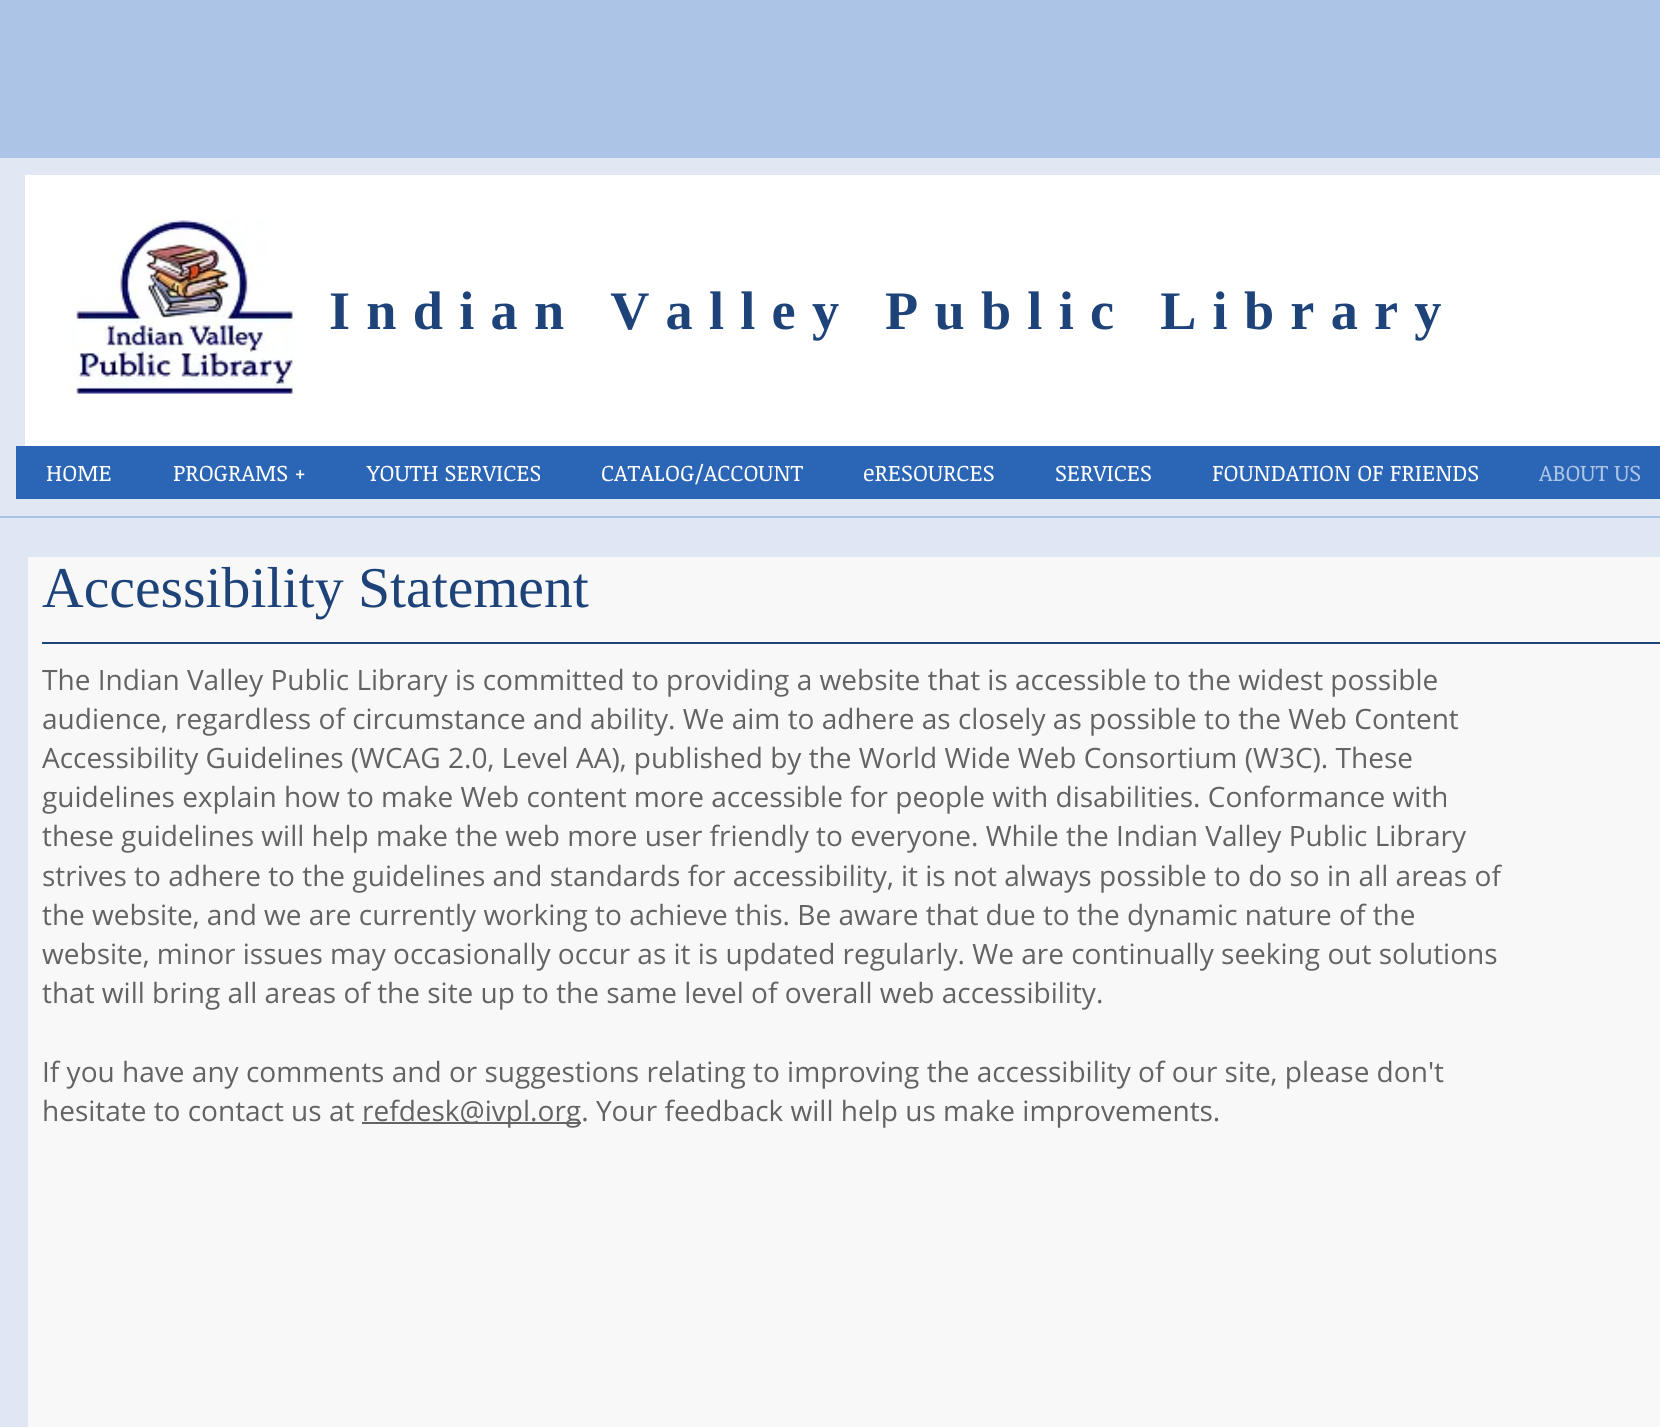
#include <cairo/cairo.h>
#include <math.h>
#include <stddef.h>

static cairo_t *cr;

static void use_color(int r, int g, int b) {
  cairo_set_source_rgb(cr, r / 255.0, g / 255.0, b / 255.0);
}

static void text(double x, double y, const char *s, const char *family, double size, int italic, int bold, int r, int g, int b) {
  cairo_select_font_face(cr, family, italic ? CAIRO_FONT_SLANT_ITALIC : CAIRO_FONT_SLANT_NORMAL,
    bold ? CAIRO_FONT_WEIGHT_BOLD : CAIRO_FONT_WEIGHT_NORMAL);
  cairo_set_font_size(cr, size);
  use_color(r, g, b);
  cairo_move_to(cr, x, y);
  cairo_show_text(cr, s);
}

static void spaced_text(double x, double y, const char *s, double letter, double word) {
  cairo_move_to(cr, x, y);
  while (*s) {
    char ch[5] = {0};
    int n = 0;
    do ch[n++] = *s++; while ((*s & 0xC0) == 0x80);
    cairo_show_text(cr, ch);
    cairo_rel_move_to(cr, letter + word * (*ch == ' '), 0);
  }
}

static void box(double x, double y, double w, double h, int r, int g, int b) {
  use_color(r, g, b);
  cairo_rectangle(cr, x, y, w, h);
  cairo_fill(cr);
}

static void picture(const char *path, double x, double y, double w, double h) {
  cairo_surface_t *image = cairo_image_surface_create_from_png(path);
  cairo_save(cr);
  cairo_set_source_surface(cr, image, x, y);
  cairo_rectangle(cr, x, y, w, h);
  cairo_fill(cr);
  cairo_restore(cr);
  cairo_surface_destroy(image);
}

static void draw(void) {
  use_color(172, 196, 230);
  cairo_paint(cr);
  box(0, 158, 1660, 358, 226, 232, 243);
  box(25, 175, 1635, 271, 255, 255, 255);
  picture("img_01.png", 70, 219, 225, 175);
  box(16, 446, 1644, 53, 43, 101, 181);
  box(0, 518, 1660, 909, 223, 230, 244);
  box(28, 557, 1632, 870, 248, 248, 248);
  box(42, 642, 1618, 2, 29, 67, 121);
  box(362, 1122, 219, 2, 99, 99, 99);
  cairo_select_font_face(cr, "Liberation Serif", CAIRO_FONT_SLANT_NORMAL, CAIRO_FONT_WEIGHT_BOLD);
  cairo_set_font_size(cr, 54.25);
  use_color(29, 67, 121);
  spaced_text(329, 329, "Indian Valley Public Library", 16.25, 0);
  text(46, 481, "HOME", "Noticia Text", 22.75, 0, 0, 255, 255, 255);
  text(173, 481, "PROGRAMS +", "Noticia Text", 22.75, 0, 0, 255, 255, 255);
  text(367, 481, "YOUTH SERVICES", "Noticia Text", 22.75, 0, 0, 255, 255, 255);
  text(601, 481, "CATALOG/ACCOUNT", "Noticia Text", 22.75, 0, 0, 255, 255, 255);
  text(863, 481, "eRESOURCES", "Noticia Text", 22.75, 0, 0, 255, 255, 255);
  text(1055, 481, "SERVICES", "Noticia Text", 22.75, 0, 0, 255, 255, 255);
  text(1212, 481, "FOUNDATION OF FRIENDS", "Noticia Text", 22.75, 0, 0, 255, 255, 255);
  text(1539, 481, "ABOUT US", "Noticia Text", 22.75, 0, 0, 172, 196, 230);
  text(42, 607, "Accessibility Statement", "Liberation Serif", 57.75, 0, 0, 29, 67, 121);
  text(42, 690, "The Indian Valley Public Library is committed to providing a website that is accessible to the widest possible", "Open Sans", 28, 0, 0, 99, 99, 99);
  text(42, 729, "audience, regardless of circumstance and ability. We aim to adhere as closely as possible to the Web Content", "Open Sans", 28, 0, 0, 99, 99, 99);
  text(42, 768, "Accessibility Guidelines (WCAG 2.0, Level AA), published by the World Wide Web Consortium (W3C). These", "Open Sans", 28, 0, 0, 99, 99, 99);
  text(42, 807, "guidelines explain how to make Web content more accessible for people with disabilities. Conformance with", "Open Sans", 28, 0, 0, 99, 99, 99);
  text(42, 846, "these guidelines will help make the web more user friendly to everyone. While the Indian Valley Public Library", "Open Sans", 28, 0, 0, 99, 99, 99);
  text(42, 886, "strives to adhere to the guidelines and standards for accessibility, it is not always possible to do so in all areas of", "Open Sans", 28, 0, 0, 99, 99, 99);
  text(42, 925, "the website, and we are currently working to achieve this. Be aware that due to the dynamic nature of the", "Open Sans", 28, 0, 0, 99, 99, 99);
  text(42, 964, "website, minor issues may occasionally occur as it is updated regularly. We are continually seeking out solutions", "Open Sans", 28, 0, 0, 99, 99, 99);
  text(42, 1003, "that will bring all areas of the site up to the same level of overall web accessibility.", "Open Sans", 28, 0, 0, 99, 99, 99);
  text(42, 1082, "If you have any comments and or suggestions relating to improving the accessibility of our site, please don't", "Open Sans", 28, 0, 0, 99, 99, 99);
  text(42, 1121, "hesitate to contact us at", "Open Sans", 28, 0, 0, 99, 99, 99);
  text(362, 1121, "refdesk@ivpl.org. Your feedback will help us make improvements.", "Open Sans", 28, 0, 0, 99, 99, 99);
}

int main(void) {
  cairo_surface_t *surface = cairo_image_surface_create(CAIRO_FORMAT_RGB24, 1660, 1427);
  cr = cairo_create(surface);
  cairo_font_options_t *options = cairo_font_options_create();
  cairo_font_options_set_hint_metrics(options, CAIRO_HINT_METRICS_OFF);
  cairo_font_options_set_hint_style(options, CAIRO_HINT_STYLE_NONE);
  cairo_set_font_options(cr, options);
  cairo_set_miter_limit(cr, 4);
  draw();
  cairo_surface_write_to_png(surface, "out.png");
  cairo_font_options_destroy(options);
  cairo_destroy(cr);
  cairo_surface_destroy(surface);
  return 0;
}
